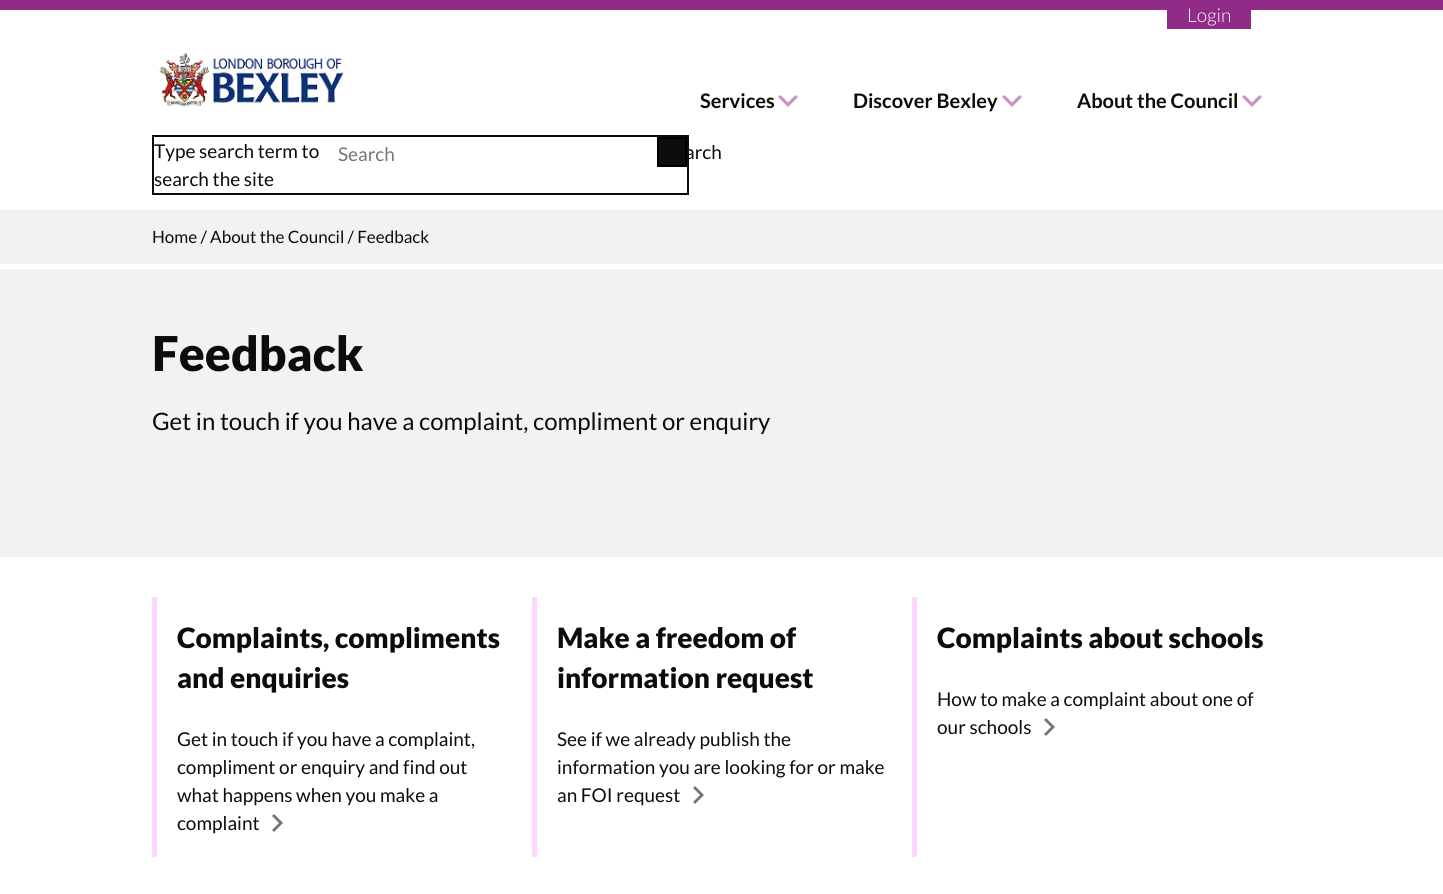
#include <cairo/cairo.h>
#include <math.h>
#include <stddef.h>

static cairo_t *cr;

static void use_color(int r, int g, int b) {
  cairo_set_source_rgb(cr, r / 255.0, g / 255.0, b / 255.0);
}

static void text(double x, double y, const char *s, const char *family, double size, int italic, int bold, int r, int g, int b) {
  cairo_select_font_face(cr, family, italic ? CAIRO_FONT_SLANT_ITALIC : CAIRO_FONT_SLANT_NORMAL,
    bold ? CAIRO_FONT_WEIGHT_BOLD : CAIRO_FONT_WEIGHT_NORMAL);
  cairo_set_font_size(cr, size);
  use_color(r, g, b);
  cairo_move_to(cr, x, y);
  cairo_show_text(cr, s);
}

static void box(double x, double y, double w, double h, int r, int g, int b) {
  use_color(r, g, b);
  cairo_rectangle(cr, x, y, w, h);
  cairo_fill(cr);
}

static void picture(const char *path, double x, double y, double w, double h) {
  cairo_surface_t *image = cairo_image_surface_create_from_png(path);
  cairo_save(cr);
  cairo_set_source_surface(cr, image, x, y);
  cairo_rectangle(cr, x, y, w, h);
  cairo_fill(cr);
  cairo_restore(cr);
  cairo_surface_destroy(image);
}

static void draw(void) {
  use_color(255, 255, 255);
  cairo_paint(cr);
  box(0, 0, 1443, 10, 145, 43, 136);
  box(1167, 10, 84, 19, 145, 43, 136);
  picture("img_01.png", 159, 52, 185, 55);
  use_color(200, 149, 195);
  cairo_new_path(cr);
  cairo_move_to(cr, 780.5, 95);
  cairo_line_to(cr, 788, 102.5);
  cairo_line_to(cr, 795.5, 95);
  cairo_line_to(cr, 798, 97);
  cairo_line_to(cr, 788, 107);
  cairo_line_to(cr, 778, 97);
  cairo_close_path(cr);
  cairo_fill(cr);
  cairo_new_path(cr);
  cairo_move_to(cr, 1004.5, 95);
  cairo_line_to(cr, 1012, 102.5);
  cairo_line_to(cr, 1019.5, 95);
  cairo_line_to(cr, 1022, 97);
  cairo_line_to(cr, 1012, 107);
  cairo_line_to(cr, 1002, 97);
  cairo_close_path(cr);
  cairo_fill(cr);
  cairo_new_path(cr);
  cairo_move_to(cr, 1244.5, 95);
  cairo_line_to(cr, 1252, 102.5);
  cairo_line_to(cr, 1259.5, 95);
  cairo_line_to(cr, 1262, 97);
  cairo_line_to(cr, 1252, 107);
  cairo_line_to(cr, 1242, 97);
  cairo_close_path(cr);
  cairo_fill(cr);
  cairo_rectangle(cr, 153, 136, 535, 58);
  use_color(11, 12, 12);
  cairo_stroke(cr);
  cairo_rectangle(cr, 658, 138, 28, 28);
  cairo_fill_preserve(cr);
  use_color(0, 0, 0);
  cairo_stroke(cr);
  box(0, 210, 1443, 54, 243, 242, 241);
  box(0, 269, 1443, 288, 243, 242, 241);
  box(152, 597, 5, 260, 254, 215, 252);
  use_color(111, 119, 123);
  cairo_new_path(cr);
  cairo_move_to(cr, 272, 830);
  cairo_line_to(cr, 279, 823);
  cairo_line_to(cr, 272, 816);
  cairo_line_to(cr, 274, 814);
  cairo_line_to(cr, 283, 823);
  cairo_line_to(cr, 274, 832);
  cairo_close_path(cr);
  cairo_fill(cr);
  box(532, 597, 5, 260, 254, 215, 252);
  use_color(111, 119, 123);
  cairo_new_path(cr);
  cairo_move_to(cr, 693, 802);
  cairo_line_to(cr, 700, 795);
  cairo_line_to(cr, 693, 788);
  cairo_line_to(cr, 695, 786);
  cairo_line_to(cr, 704, 795);
  cairo_line_to(cr, 695, 804);
  cairo_close_path(cr);
  cairo_fill(cr);
  box(912, 597, 5, 260, 254, 215, 252);
  use_color(111, 119, 123);
  cairo_new_path(cr);
  cairo_move_to(cr, 1044, 734);
  cairo_line_to(cr, 1051, 727);
  cairo_line_to(cr, 1044, 720);
  cairo_line_to(cr, 1046, 718);
  cairo_line_to(cr, 1055, 727);
  cairo_line_to(cr, 1046, 736);
  cairo_close_path(cr);
  cairo_fill(cr);
  text(1187, 22, "Login", "Lato Light", 19, 0, 0, 255, 255, 255);
  text(700, 108, "Services", "Lato", 20, 0, 1, 11, 12, 12);
  text(853, 108, "Discover Bexley", "Lato", 20, 0, 1, 11, 12, 12);
  text(1077, 108, "About the Council", "Lato", 20, 0, 1, 11, 12, 12);
  text(154, 158, "Type search term to", "Lato", 19, 0, 0, 11, 12, 12);
  text(154, 186, "search the site", "Lato", 19, 0, 0, 11, 12, 12);
  text(338, 161, "Search", "Lato", 19, 0, 0, 117, 117, 117);
  text(685, 159, "arch", "Lato", 19, 0, 0, 11, 12, 12);
  text(152, 243, "Home / About the Council / Feedback", "Lato", 17, 0, 0, 11, 12, 12);
  text(152, 371, "Feedback", "Lato Black", 48, 0, 0, 11, 12, 12);
  text(152, 430, "Get in touch if you have a complaint, compliment or enquiry", "Lato", 24, 0, 0, 11, 12, 12);
  text(177, 648, "Complaints, compliments", "Lato Black", 28, 0, 0, 11, 12, 12);
  text(177, 688, "and enquiries", "Lato Black", 28, 0, 0, 11, 12, 12);
  text(177, 746, "Get in touch if you have a complaint,", "Lato", 19, 0, 0, 11, 12, 12);
  text(177, 774, "compliment or enquiry and find out", "Lato", 19, 0, 0, 11, 12, 12);
  text(177, 802, "what happens when you make a", "Lato", 19, 0, 0, 11, 12, 12);
  text(177, 830, "complaint", "Lato", 19, 0, 0, 11, 12, 12);
  text(557, 648, "Make a freedom of", "Lato Black", 28, 0, 0, 11, 12, 12);
  text(557, 688, "information request", "Lato Black", 28, 0, 0, 11, 12, 12);
  text(557, 746, "See if we already publish the", "Lato", 19, 0, 0, 11, 12, 12);
  text(557, 774, "information you are looking for or make", "Lato", 19, 0, 0, 11, 12, 12);
  text(557, 802, "an FOI request", "Lato", 19, 0, 0, 11, 12, 12);
  text(937, 648, "Complaints about schools", "Lato Black", 28, 0, 0, 11, 12, 12);
  text(937, 706, "How to make a complaint about one of", "Lato", 19, 0, 0, 11, 12, 12);
  text(937, 734, "our schools", "Lato", 19, 0, 0, 11, 12, 12);
}

int main(void) {
  cairo_surface_t *surface = cairo_image_surface_create(CAIRO_FORMAT_RGB24, 1443, 894);
  cr = cairo_create(surface);
  cairo_font_options_t *options = cairo_font_options_create();
  cairo_font_options_set_hint_metrics(options, CAIRO_HINT_METRICS_OFF);
  cairo_font_options_set_hint_style(options, CAIRO_HINT_STYLE_NONE);
  cairo_set_font_options(cr, options);
  cairo_set_miter_limit(cr, 4);
  draw();
  cairo_surface_write_to_png(surface, "out.png");
  cairo_font_options_destroy(options);
  cairo_destroy(cr);
  cairo_surface_destroy(surface);
  return 0;
}
